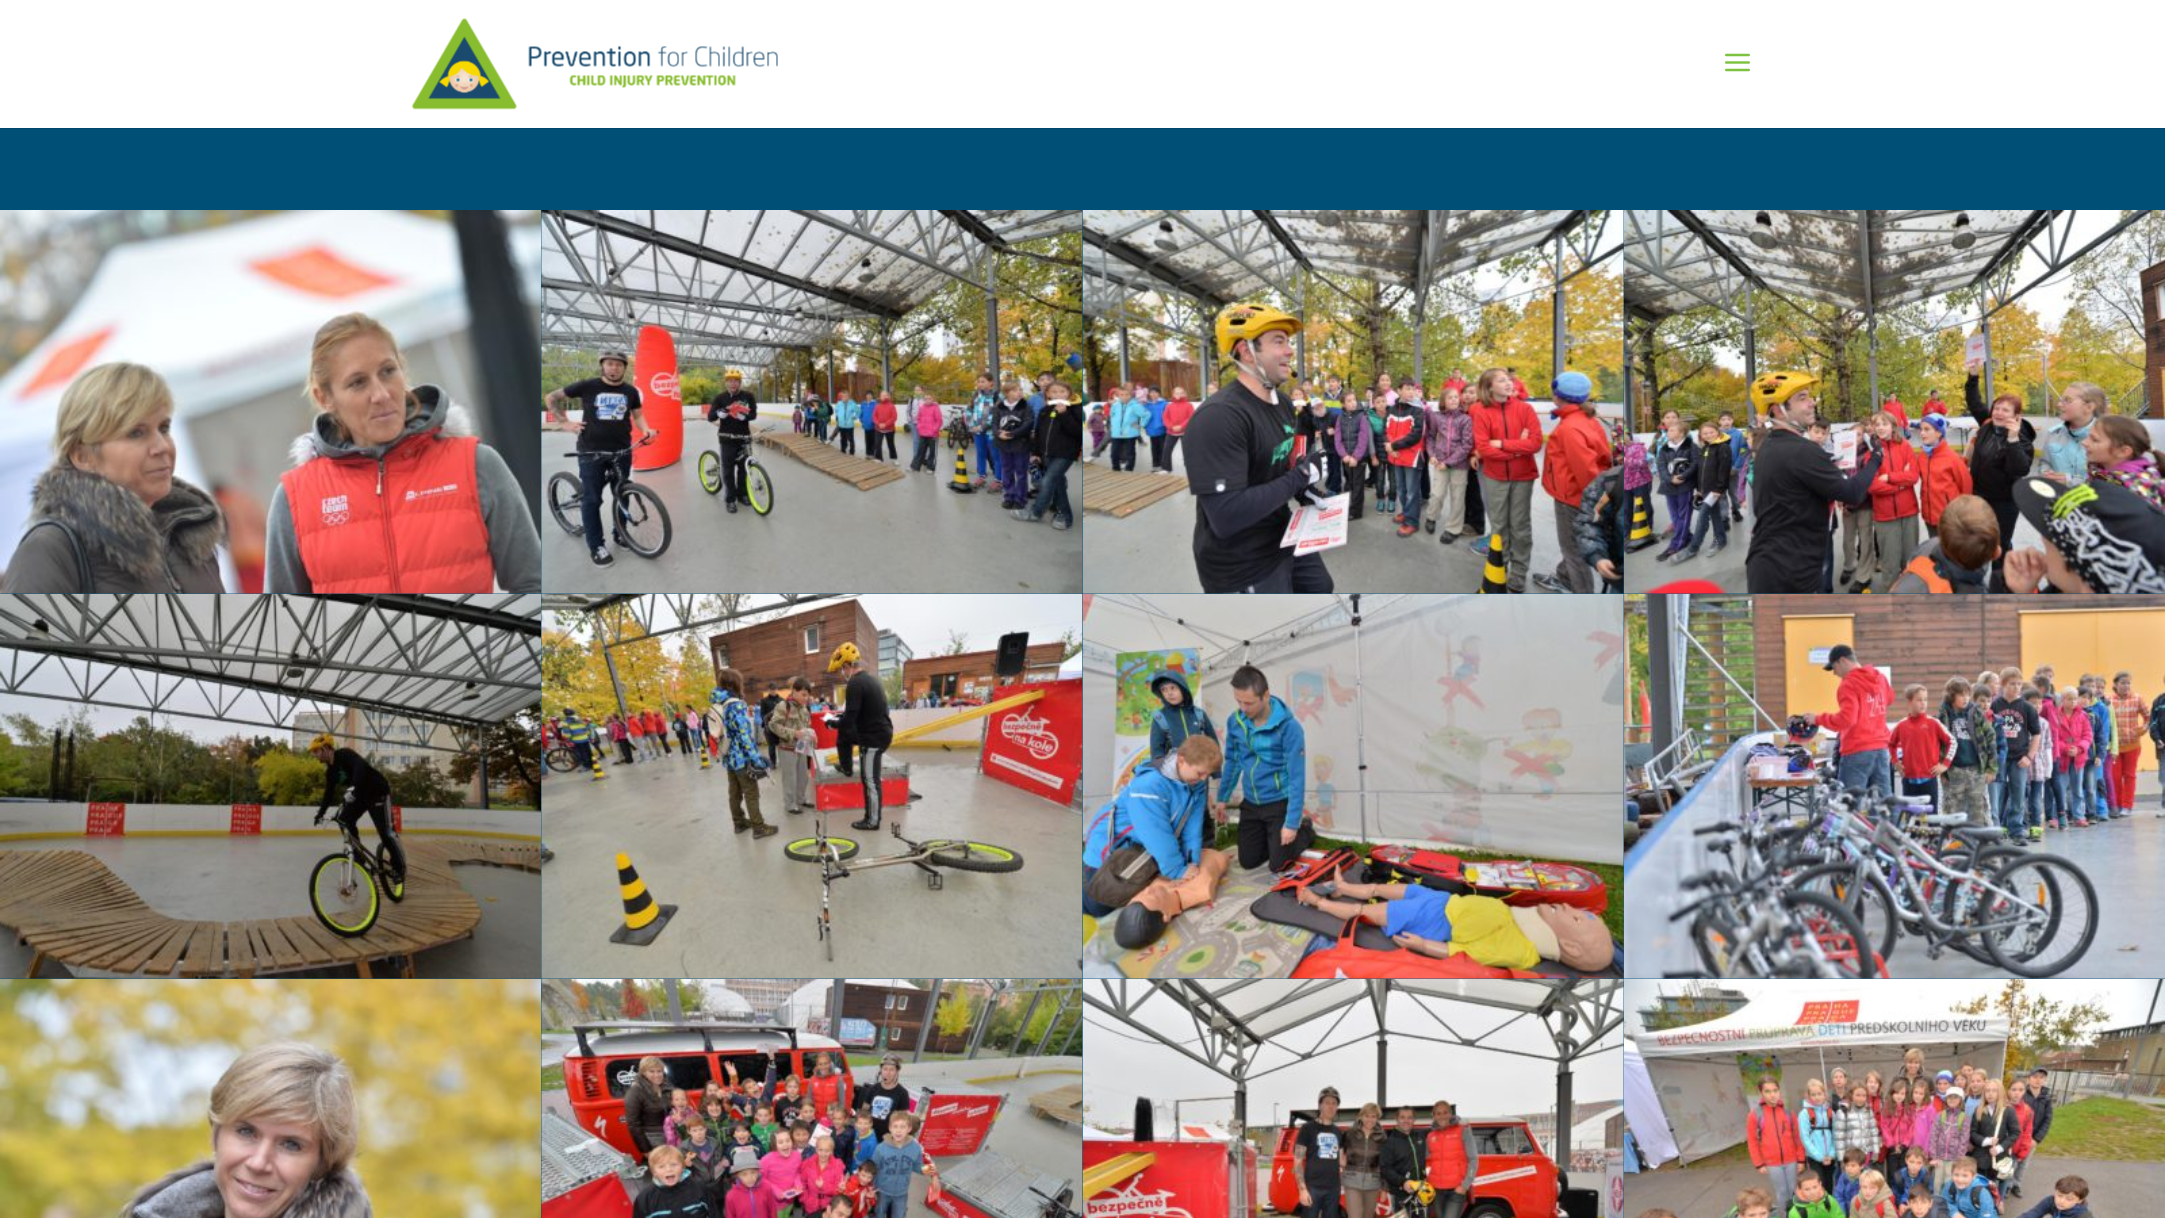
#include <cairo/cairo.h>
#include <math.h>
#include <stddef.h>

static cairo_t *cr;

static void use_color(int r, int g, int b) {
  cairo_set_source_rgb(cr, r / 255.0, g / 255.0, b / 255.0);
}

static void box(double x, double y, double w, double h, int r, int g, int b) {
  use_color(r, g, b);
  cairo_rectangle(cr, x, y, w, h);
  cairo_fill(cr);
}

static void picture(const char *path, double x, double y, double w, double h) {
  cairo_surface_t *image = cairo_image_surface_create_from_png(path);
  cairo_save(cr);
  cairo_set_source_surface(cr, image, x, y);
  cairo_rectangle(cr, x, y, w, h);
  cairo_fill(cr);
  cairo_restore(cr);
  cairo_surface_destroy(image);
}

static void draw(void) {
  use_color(0, 79, 119);
  cairo_paint(cr);
  box(0, 128, 2165, 1, 0, 71, 107);
  box(0, 0, 2165, 128, 255, 255, 255);
  picture("img_01.png", 412, 18, 366, 92);
  picture("img_02.png", 1725, 53, 25, 19);
  picture("img_03.png", 0, 210, 542, 384);
  picture("img_04.png", 541, 210, 542, 384);
  picture("img_05.png", 1082, 210, 542, 384);
  picture("img_06.png", 1623, 210, 542, 384);
  picture("img_07.png", 0, 593, 542, 386);
  picture("img_08.png", 541, 593, 542, 386);
  picture("img_09.png", 1082, 593, 542, 386);
  picture("img_10.png", 1623, 593, 542, 386);
  picture("img_11.png", 0, 978, 542, 240);
  picture("img_12.png", 541, 978, 542, 240);
  picture("img_13.png", 1082, 978, 542, 240);
  picture("img_14.png", 1623, 978, 542, 240);
}

int main(void) {
  cairo_surface_t *surface = cairo_image_surface_create(CAIRO_FORMAT_RGB24, 2165, 1218);
  cr = cairo_create(surface);
  cairo_font_options_t *options = cairo_font_options_create();
  cairo_font_options_set_hint_metrics(options, CAIRO_HINT_METRICS_OFF);
  cairo_font_options_set_hint_style(options, CAIRO_HINT_STYLE_NONE);
  cairo_set_font_options(cr, options);
  cairo_set_miter_limit(cr, 4);
  draw();
  cairo_surface_write_to_png(surface, "out.png");
  cairo_font_options_destroy(options);
  cairo_destroy(cr);
  cairo_surface_destroy(surface);
  return 0;
}
